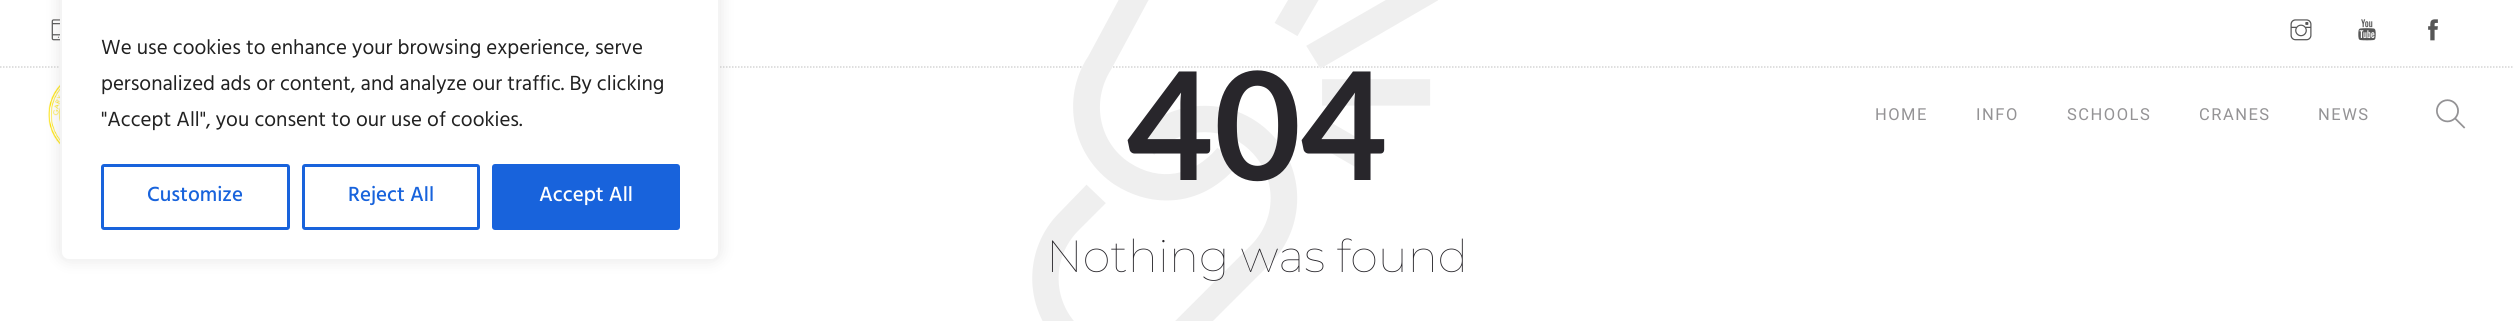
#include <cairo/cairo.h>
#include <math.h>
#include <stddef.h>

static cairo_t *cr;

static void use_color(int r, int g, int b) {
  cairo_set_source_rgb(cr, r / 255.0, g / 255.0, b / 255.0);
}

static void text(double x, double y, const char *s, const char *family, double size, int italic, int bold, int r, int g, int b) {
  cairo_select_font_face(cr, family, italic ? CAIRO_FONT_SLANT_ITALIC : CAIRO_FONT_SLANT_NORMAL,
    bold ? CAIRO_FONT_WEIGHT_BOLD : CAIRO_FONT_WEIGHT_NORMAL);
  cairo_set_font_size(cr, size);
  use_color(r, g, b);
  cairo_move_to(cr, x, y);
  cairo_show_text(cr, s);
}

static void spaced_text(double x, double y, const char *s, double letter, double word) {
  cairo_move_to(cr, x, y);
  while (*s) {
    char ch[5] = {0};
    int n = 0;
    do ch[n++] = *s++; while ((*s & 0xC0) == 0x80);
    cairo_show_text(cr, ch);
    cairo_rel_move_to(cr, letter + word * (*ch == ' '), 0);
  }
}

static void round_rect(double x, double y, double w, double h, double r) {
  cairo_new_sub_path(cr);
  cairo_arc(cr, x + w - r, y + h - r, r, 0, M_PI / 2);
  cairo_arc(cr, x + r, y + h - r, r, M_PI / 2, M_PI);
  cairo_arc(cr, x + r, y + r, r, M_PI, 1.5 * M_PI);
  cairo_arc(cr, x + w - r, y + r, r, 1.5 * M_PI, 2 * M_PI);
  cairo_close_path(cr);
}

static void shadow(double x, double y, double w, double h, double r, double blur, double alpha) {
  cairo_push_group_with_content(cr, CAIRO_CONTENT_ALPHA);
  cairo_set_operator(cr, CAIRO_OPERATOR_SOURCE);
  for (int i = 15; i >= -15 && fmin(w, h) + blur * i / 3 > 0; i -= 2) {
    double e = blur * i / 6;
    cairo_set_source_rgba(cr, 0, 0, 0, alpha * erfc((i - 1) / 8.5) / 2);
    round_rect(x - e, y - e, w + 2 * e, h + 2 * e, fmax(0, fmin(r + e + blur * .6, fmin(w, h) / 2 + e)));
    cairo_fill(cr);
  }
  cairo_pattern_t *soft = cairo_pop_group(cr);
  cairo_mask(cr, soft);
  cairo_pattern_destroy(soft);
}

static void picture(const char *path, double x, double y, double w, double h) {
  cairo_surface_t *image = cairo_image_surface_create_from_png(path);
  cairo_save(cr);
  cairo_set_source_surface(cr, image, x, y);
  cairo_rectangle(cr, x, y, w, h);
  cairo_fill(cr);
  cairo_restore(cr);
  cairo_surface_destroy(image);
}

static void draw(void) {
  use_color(255, 255, 255);
  cairo_paint(cr);
  cairo_new_path(cr);
  cairo_move_to(cr, 0, 67);
  cairo_line_to(cr, 2514, 67);
  use_color(212, 212, 213);
  cairo_set_line_width(cr, 1.5);
  cairo_set_dash(cr, (double[]){1.5, 1.5}, 2, 0);
  cairo_stroke(cr);
  picture("img_02.png", 51, 19, 9, 22);
  picture("img_06.png", 48, 70, 12, 89);
  use_color(172, 171, 171);
  shadow(60, -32, 660, 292, 9, 7.5, 0.3);
  use_color(255, 255, 255);
  round_rect(61, -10, 658, 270, 8);
  cairo_fill_preserve(cr);
  use_color(244, 244, 244);
  cairo_set_line_width(cr, 2);
  cairo_set_dash(cr, NULL, 0, 0);
  cairo_stroke(cr);
  round_rect(102.5, 165.5, 186, 63, 1.5);
  use_color(24, 99, 220);
  cairo_set_line_width(cr, 3);
  cairo_stroke(cr);
  round_rect(303.5, 165.5, 175, 63, 1.5);
  cairo_stroke(cr);
  round_rect(493.5, 165.5, 185, 63, 1.5);
  cairo_fill_preserve(cr);
  cairo_stroke(cr);
  picture("img_01.png", 1032, 0, 406, 321);
  picture("img_03.png", 2290, 19, 22, 22);
  picture("img_04.png", 2358, 19, 18, 22);
  picture("img_05.png", 2428, 19, 10, 22);
  picture("img_07.png", 2436, 99, 30, 30);
  text(101, 54, "We use cookies to enhance your browsing experience, serve", "Hind", 21, 0, 0, 33, 33, 33);
  text(101, 90, "personalized ads or content, and analyze our traffic. By clicking", "Hind", 21, 0, 0, 33, 33, 33);
  text(101, 126, "\"Accept All\", you consent to our use of cookies.", "Hind", 21, 0, 0, 33, 33, 33);
  text(147, 201, "Customize", "Hind Medium", 21, 0, 0, 24, 99, 220);
  text(348, 201, "Reject All", "Hind Medium", 21, 0, 0, 24, 99, 220);
  text(539, 201, "Accept All", "Hind Medium", 21, 0, 0, 255, 255, 255);
  text(1127, 180, "404", "Lato", 150, 0, 1, 40, 38, 43);
  text(1046, 272, "Nothing was found", "Montserrat Thin", 45, 0, 0, 40, 38, 43);
  cairo_select_font_face(cr, "Roboto", CAIRO_FONT_SLANT_NORMAL, CAIRO_FONT_WEIGHT_NORMAL);
  cairo_set_font_size(cr, 16.5);
  use_color(148, 147, 149);
  spaced_text(1875, 120, "HOME", 1.5, 0);
  spaced_text(1976, 120, "INFO", 1.5, 0);
  spaced_text(2067, 120, "SCHOOLS", 1.5, 0);
  spaced_text(2199, 120, "CRANES", 1.5, 0);
  spaced_text(2318, 120, "NEWS", 1.5, 0);
}

int main(void) {
  cairo_surface_t *surface = cairo_image_surface_create(CAIRO_FORMAT_RGB24, 2514, 321);
  cr = cairo_create(surface);
  cairo_font_options_t *options = cairo_font_options_create();
  cairo_font_options_set_hint_metrics(options, CAIRO_HINT_METRICS_OFF);
  cairo_font_options_set_hint_style(options, CAIRO_HINT_STYLE_NONE);
  cairo_set_font_options(cr, options);
  cairo_set_miter_limit(cr, 4);
  draw();
  cairo_surface_write_to_png(surface, "out.png");
  cairo_font_options_destroy(options);
  cairo_destroy(cr);
  cairo_surface_destroy(surface);
  return 0;
}
